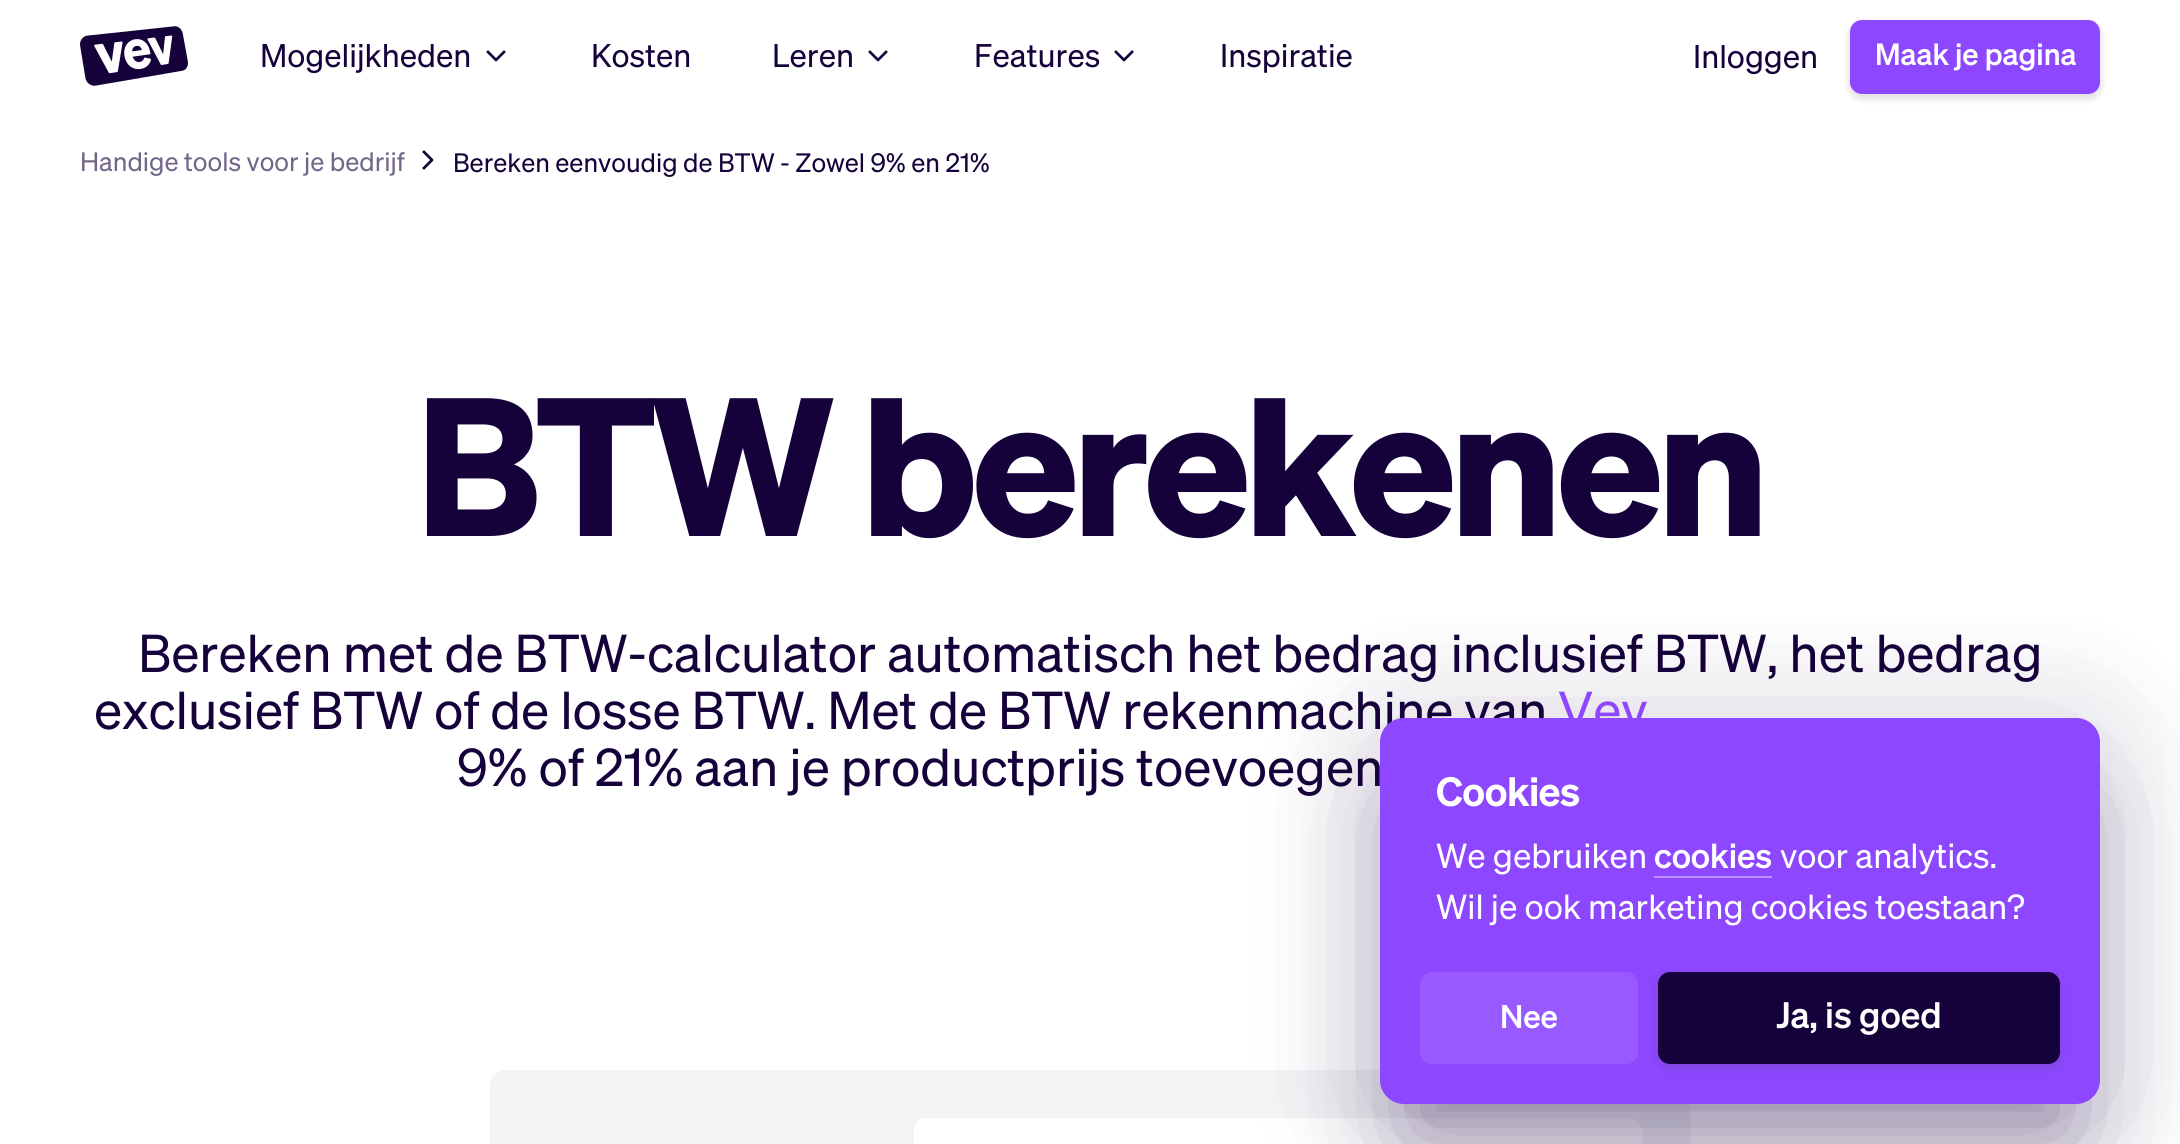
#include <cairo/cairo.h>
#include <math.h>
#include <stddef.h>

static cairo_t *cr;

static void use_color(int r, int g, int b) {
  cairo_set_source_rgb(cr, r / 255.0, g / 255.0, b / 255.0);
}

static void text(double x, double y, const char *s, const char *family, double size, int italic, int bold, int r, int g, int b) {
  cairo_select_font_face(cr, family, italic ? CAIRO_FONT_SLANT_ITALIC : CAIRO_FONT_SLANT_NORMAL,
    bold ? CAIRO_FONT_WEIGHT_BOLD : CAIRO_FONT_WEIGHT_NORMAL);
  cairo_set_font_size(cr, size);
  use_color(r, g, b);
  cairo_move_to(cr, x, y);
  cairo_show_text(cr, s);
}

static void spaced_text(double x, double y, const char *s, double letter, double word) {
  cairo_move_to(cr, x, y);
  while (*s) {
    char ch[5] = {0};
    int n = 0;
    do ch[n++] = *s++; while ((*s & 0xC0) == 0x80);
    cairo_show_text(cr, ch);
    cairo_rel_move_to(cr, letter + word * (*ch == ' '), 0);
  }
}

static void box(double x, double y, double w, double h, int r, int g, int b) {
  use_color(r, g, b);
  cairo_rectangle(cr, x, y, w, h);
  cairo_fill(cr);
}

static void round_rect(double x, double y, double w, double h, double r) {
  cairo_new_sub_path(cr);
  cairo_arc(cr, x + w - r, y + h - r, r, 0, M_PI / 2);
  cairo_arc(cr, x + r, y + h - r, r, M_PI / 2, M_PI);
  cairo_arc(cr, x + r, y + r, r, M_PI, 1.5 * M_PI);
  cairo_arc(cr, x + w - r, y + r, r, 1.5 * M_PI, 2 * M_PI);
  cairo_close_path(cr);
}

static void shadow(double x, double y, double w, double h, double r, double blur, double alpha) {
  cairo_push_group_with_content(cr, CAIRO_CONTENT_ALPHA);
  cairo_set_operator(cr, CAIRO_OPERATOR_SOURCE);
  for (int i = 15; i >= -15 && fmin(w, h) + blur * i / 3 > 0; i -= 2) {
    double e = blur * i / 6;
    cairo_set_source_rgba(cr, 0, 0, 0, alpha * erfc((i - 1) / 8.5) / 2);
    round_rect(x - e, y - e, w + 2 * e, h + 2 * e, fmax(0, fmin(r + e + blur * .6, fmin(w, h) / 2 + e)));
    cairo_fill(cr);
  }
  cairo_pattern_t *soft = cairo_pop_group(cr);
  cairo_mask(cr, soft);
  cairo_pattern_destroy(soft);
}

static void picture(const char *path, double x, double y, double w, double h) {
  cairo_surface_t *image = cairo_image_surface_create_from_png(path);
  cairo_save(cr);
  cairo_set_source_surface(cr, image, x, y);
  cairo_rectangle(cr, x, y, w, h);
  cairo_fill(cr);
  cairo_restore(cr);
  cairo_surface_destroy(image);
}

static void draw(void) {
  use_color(255, 255, 255);
  cairo_paint(cr);
  picture("img_01.png", 80, 26, 108, 60);
  cairo_new_path(cr);
  cairo_move_to(cr, 504, 52);
  cairo_line_to(cr, 496, 60);
  cairo_line_to(cr, 488, 52);
  use_color(21, 2, 58);
  cairo_set_line_width(cr, 2.7);
  cairo_set_line_cap(cr, CAIRO_LINE_CAP_SQUARE);
  cairo_set_line_join(cr, CAIRO_LINE_JOIN_ROUND);
  cairo_stroke(cr);
  cairo_new_path(cr);
  cairo_move_to(cr, 886, 52);
  cairo_line_to(cr, 878, 60);
  cairo_line_to(cr, 870, 52);
  cairo_stroke(cr);
  cairo_new_path(cr);
  cairo_move_to(cr, 1132, 52);
  cairo_line_to(cr, 1124, 60);
  cairo_line_to(cr, 1116, 52);
  cairo_stroke(cr);
  use_color(69, 64, 78);
  shadow(1848, 22, 254, 78, 14, 3, 0.15);
  use_color(140, 71, 255);
  round_rect(1850, 20, 250, 74, 12);
  cairo_fill(cr);
  cairo_new_path(cr);
  cairo_move_to(cr, 424, 152);
  cairo_line_to(cr, 432, 160);
  cairo_line_to(cr, 424, 168);
  use_color(21, 2, 58);
  cairo_stroke(cr);
  use_color(244, 243, 245);
  round_rect(490, 1070, 1200, 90, 16);
  cairo_fill(cr);
  use_color(255, 255, 255);
  round_rect(914, 1118, 728, 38, 12);
  cairo_fill(cr);
  use_color(21, 2, 58);
  shadow(1412, 814, 656, 322, 0, 48, 0.35);
  shadow(1420, 790, 640, 306, 0, 80, 0.25);
  shadow(1320, 660, 840, 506, 84, 30, 0.05);
  text(260, 67, "Mogelijkheden", "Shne", 32, 0, 0, 21, 2, 58);
  text(591, 67, "Kosten", "Shne", 32, 0, 0, 21, 2, 58);
  text(772, 67, "Leren", "Shne", 32, 0, 0, 21, 2, 58);
  text(974, 67, "Features", "Shne", 32, 0, 0, 21, 2, 58);
  text(1220, 67, "Inspiratie", "Shne", 32, 0, 0, 21, 2, 58);
  text(1693, 68, "Inloggen", "Shne", 32, 0, 0, 21, 2, 58);
  text(1875, 65, "Maak je pagina", "Shne Medium", 30, 0, 0, 255, 255, 255);
  text(80, 171, "Handige tools voor je bedrijf", "Shne", 26, 0, 0, 115, 103, 137);
  text(453, 172, "Bereken eenvoudig de BTW - Zowel 9% en 21%", "Shne", 26, 0, 0, 21, 2, 58);
  cairo_select_font_face(cr, "Shne", CAIRO_FONT_SLANT_NORMAL, CAIRO_FONT_WEIGHT_BOLD);
  cairo_set_font_size(cr, 192);
  spaced_text(416, 536, "BTW berekenen", -5.75, 0);
  text(138, 672, "Bereken met de BTW-calculator automatisch het bedrag inclusief BTW, het bedrag", "Shne", 52, 0, 0, 21, 2, 58);
  text(94, 729, "exclusief BTW of de losse BTW. Met de BTW rekenmachine van", "Shne", 52, 0, 0, 21, 2, 58);
  text(1558, 729, "Vev", "Shne", 52, 0, 0, 140, 71, 255);
  text(457, 786, "9% of 21% aan je productprijs toevoegen", "Shne", 52, 0, 0, 21, 2, 58);
  use_color(140, 71, 255);
  round_rect(1380, 718, 720, 386, 24);
  cairo_fill(cr);
  cairo_select_font_face(cr, "Shne SemiBold", CAIRO_FONT_SLANT_NORMAL, CAIRO_FONT_WEIGHT_NORMAL);
  cairo_set_font_size(cr, 40);
  use_color(255, 255, 255);
  spaced_text(1436, 806, "Cookies", -0.5, 0);
  text(1436, 868, "We gebruiken", "Shne", 34, 0, 0, 255, 255, 255);
  text(1654, 868, "cookies", "Shne Medium", 34, 0, 0, 255, 255, 255);
  box(1654, 876, 118, 2, 186, 145, 255);
  text(1780, 868, "voor analytics.", "Shne", 34, 0, 0, 255, 255, 255);
  text(1436, 919, "Wil je ook marketing cookies toestaan?", "Shne", 34, 0, 0, 255, 255, 255);
  use_color(152, 89, 255);
  round_rect(1420, 972, 218, 92, 12);
  cairo_fill(cr);
  text(1500, 1028, "Nee", "Shne Medium", 32, 0, 0, 255, 255, 255);
  use_color(69, 64, 78);
  shadow(1656, 974, 406, 96, 14, 3, 0.15);
  use_color(21, 2, 58);
  round_rect(1658, 972, 402, 92, 12);
  cairo_fill(cr);
  text(1776, 1028, "Ja, is goed", "Shne Medium", 36, 0, 0, 255, 255, 255);
}

int main(void) {
  cairo_surface_t *surface = cairo_image_surface_create(CAIRO_FORMAT_RGB24, 2180, 1144);
  cr = cairo_create(surface);
  cairo_font_options_t *options = cairo_font_options_create();
  cairo_font_options_set_hint_metrics(options, CAIRO_HINT_METRICS_OFF);
  cairo_font_options_set_hint_style(options, CAIRO_HINT_STYLE_NONE);
  cairo_set_font_options(cr, options);
  cairo_set_miter_limit(cr, 4);
  draw();
  cairo_surface_write_to_png(surface, "out.png");
  cairo_font_options_destroy(options);
  cairo_destroy(cr);
  cairo_surface_destroy(surface);
  return 0;
}
